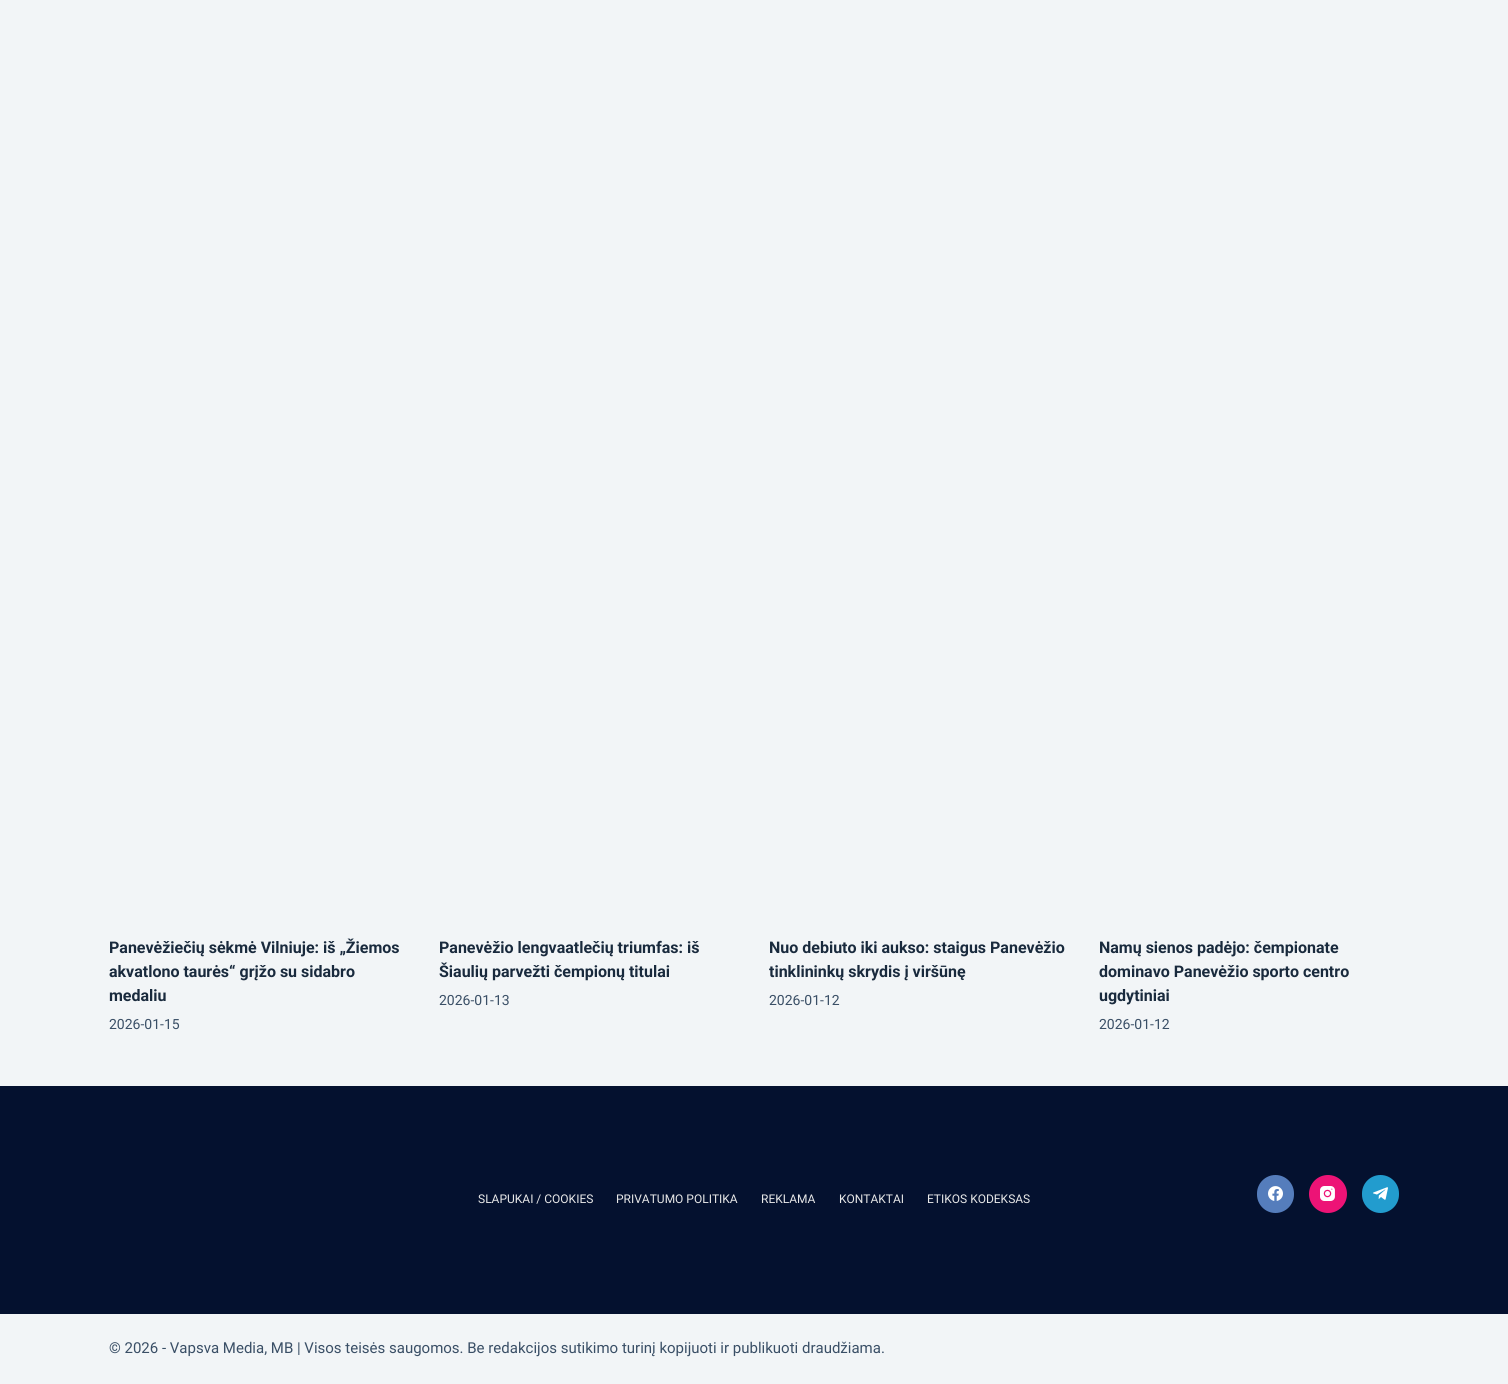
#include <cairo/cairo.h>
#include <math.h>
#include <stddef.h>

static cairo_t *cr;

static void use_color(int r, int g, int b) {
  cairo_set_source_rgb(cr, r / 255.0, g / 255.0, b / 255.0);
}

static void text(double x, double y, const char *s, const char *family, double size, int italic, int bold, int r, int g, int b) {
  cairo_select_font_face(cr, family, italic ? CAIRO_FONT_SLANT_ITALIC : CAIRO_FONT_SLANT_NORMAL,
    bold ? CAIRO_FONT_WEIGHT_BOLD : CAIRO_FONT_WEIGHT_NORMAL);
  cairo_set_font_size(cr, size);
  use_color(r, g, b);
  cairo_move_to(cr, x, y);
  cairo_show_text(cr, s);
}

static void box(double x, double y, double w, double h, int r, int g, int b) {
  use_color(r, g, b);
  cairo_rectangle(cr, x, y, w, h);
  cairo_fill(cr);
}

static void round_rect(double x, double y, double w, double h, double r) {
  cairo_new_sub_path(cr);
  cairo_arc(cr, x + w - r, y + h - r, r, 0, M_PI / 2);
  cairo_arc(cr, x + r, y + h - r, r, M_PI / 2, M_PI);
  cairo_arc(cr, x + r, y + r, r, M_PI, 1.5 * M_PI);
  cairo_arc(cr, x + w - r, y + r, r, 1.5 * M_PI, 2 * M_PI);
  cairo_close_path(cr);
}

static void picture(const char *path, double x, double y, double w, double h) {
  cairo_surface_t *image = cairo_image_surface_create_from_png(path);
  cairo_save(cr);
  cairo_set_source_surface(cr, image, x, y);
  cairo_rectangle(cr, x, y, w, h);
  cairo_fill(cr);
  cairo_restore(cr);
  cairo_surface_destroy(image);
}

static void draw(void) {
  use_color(242, 245, 247);
  cairo_paint(cr);
  box(0, 1086, 1508, 228, 4, 17, 47);
  use_color(85, 125, 188);
  round_rect(1257, 1175, 37, 38, 18.5);
  cairo_fill(cr);
  picture("img_01.png", 1268, 1186, 15, 15);
  use_color(237, 19, 118);
  cairo_arc(cr, 1328, 1194, 19, 0, 2 * M_PI);
  cairo_fill(cr);
  picture("img_02.png", 1320, 1186, 15, 15);
  use_color(34, 156, 206);
  round_rect(1362, 1175, 37, 38, 18.5);
  cairo_fill(cr);
  picture("img_03.png", 1373, 1187, 15, 13);
  text(109, 953, "Panevėžiečių sėkmė Vilniuje: iš „Žiemos", "Roboto", 16, 0, 1, 25, 42, 61);
  text(109, 977, "akvatlono taurės“ grįžo su sidabro", "Roboto", 16, 0, 1, 25, 42, 61);
  text(109, 1001, "medaliu", "Roboto", 16, 0, 1, 25, 42, 61);
  text(109, 1029, "2026-01-15", "Roboto", 14, 0, 0, 58, 79, 102);
  text(439, 953, "Panevėžio lengvaatlečių triumfas: iš", "Roboto", 16, 0, 1, 25, 42, 61);
  text(439, 977, "Šiaulių parvežti čempionų titulai", "Roboto", 16, 0, 1, 25, 42, 61);
  text(439, 1005, "2026-01-13", "Roboto", 14, 0, 0, 58, 79, 102);
  text(769, 953, "Nuo debiuto iki aukso: staigus Panevėžio", "Roboto", 16, 0, 1, 25, 42, 61);
  text(769, 977, "tinklininkų skrydis į viršūnę", "Roboto", 16, 0, 1, 25, 42, 61);
  text(769, 1005, "2026-01-12", "Roboto", 14, 0, 0, 58, 79, 102);
  text(1099, 953, "Namų sienos padėjo: čempionate", "Roboto", 16, 0, 1, 25, 42, 61);
  text(1099, 977, "dominavo Panevėžio sporto centro", "Roboto", 16, 0, 1, 25, 42, 61);
  text(1099, 1001, "ugdytiniai", "Roboto", 16, 0, 1, 25, 42, 61);
  text(1099, 1029, "2026-01-12", "Roboto", 14, 0, 0, 58, 79, 102);
  text(478, 1203, "SLAPUKAI / COOKIES", "Roboto", 12, 0, 0, 232, 232, 232);
  text(616, 1203, "PRIVATUMO POLITIKA", "Roboto", 12, 0, 0, 232, 232, 232);
  text(761, 1203, "REKLAMA", "Roboto", 12, 0, 0, 232, 232, 232);
  text(839, 1203, "KONTAKTAI", "Roboto", 12, 0, 0, 232, 232, 232);
  text(927, 1203, "ETIKOS KODEKSAS", "Roboto", 12, 0, 0, 232, 232, 232);
  text(109, 1353, "© 2026 - Vapsva Media, MB | Visos teisės saugomos. Be redakcijos sutikimo turinį kopijuoti ir publikuoti draudžiama.", "Roboto", 15, 0, 0, 58, 79, 102);
}

int main(void) {
  cairo_surface_t *surface = cairo_image_surface_create(CAIRO_FORMAT_RGB24, 1508, 1384);
  cr = cairo_create(surface);
  cairo_font_options_t *options = cairo_font_options_create();
  cairo_font_options_set_hint_metrics(options, CAIRO_HINT_METRICS_OFF);
  cairo_font_options_set_hint_style(options, CAIRO_HINT_STYLE_NONE);
  cairo_set_font_options(cr, options);
  cairo_set_miter_limit(cr, 4);
  draw();
  cairo_surface_write_to_png(surface, "out.png");
  cairo_font_options_destroy(options);
  cairo_destroy(cr);
  cairo_surface_destroy(surface);
  return 0;
}
